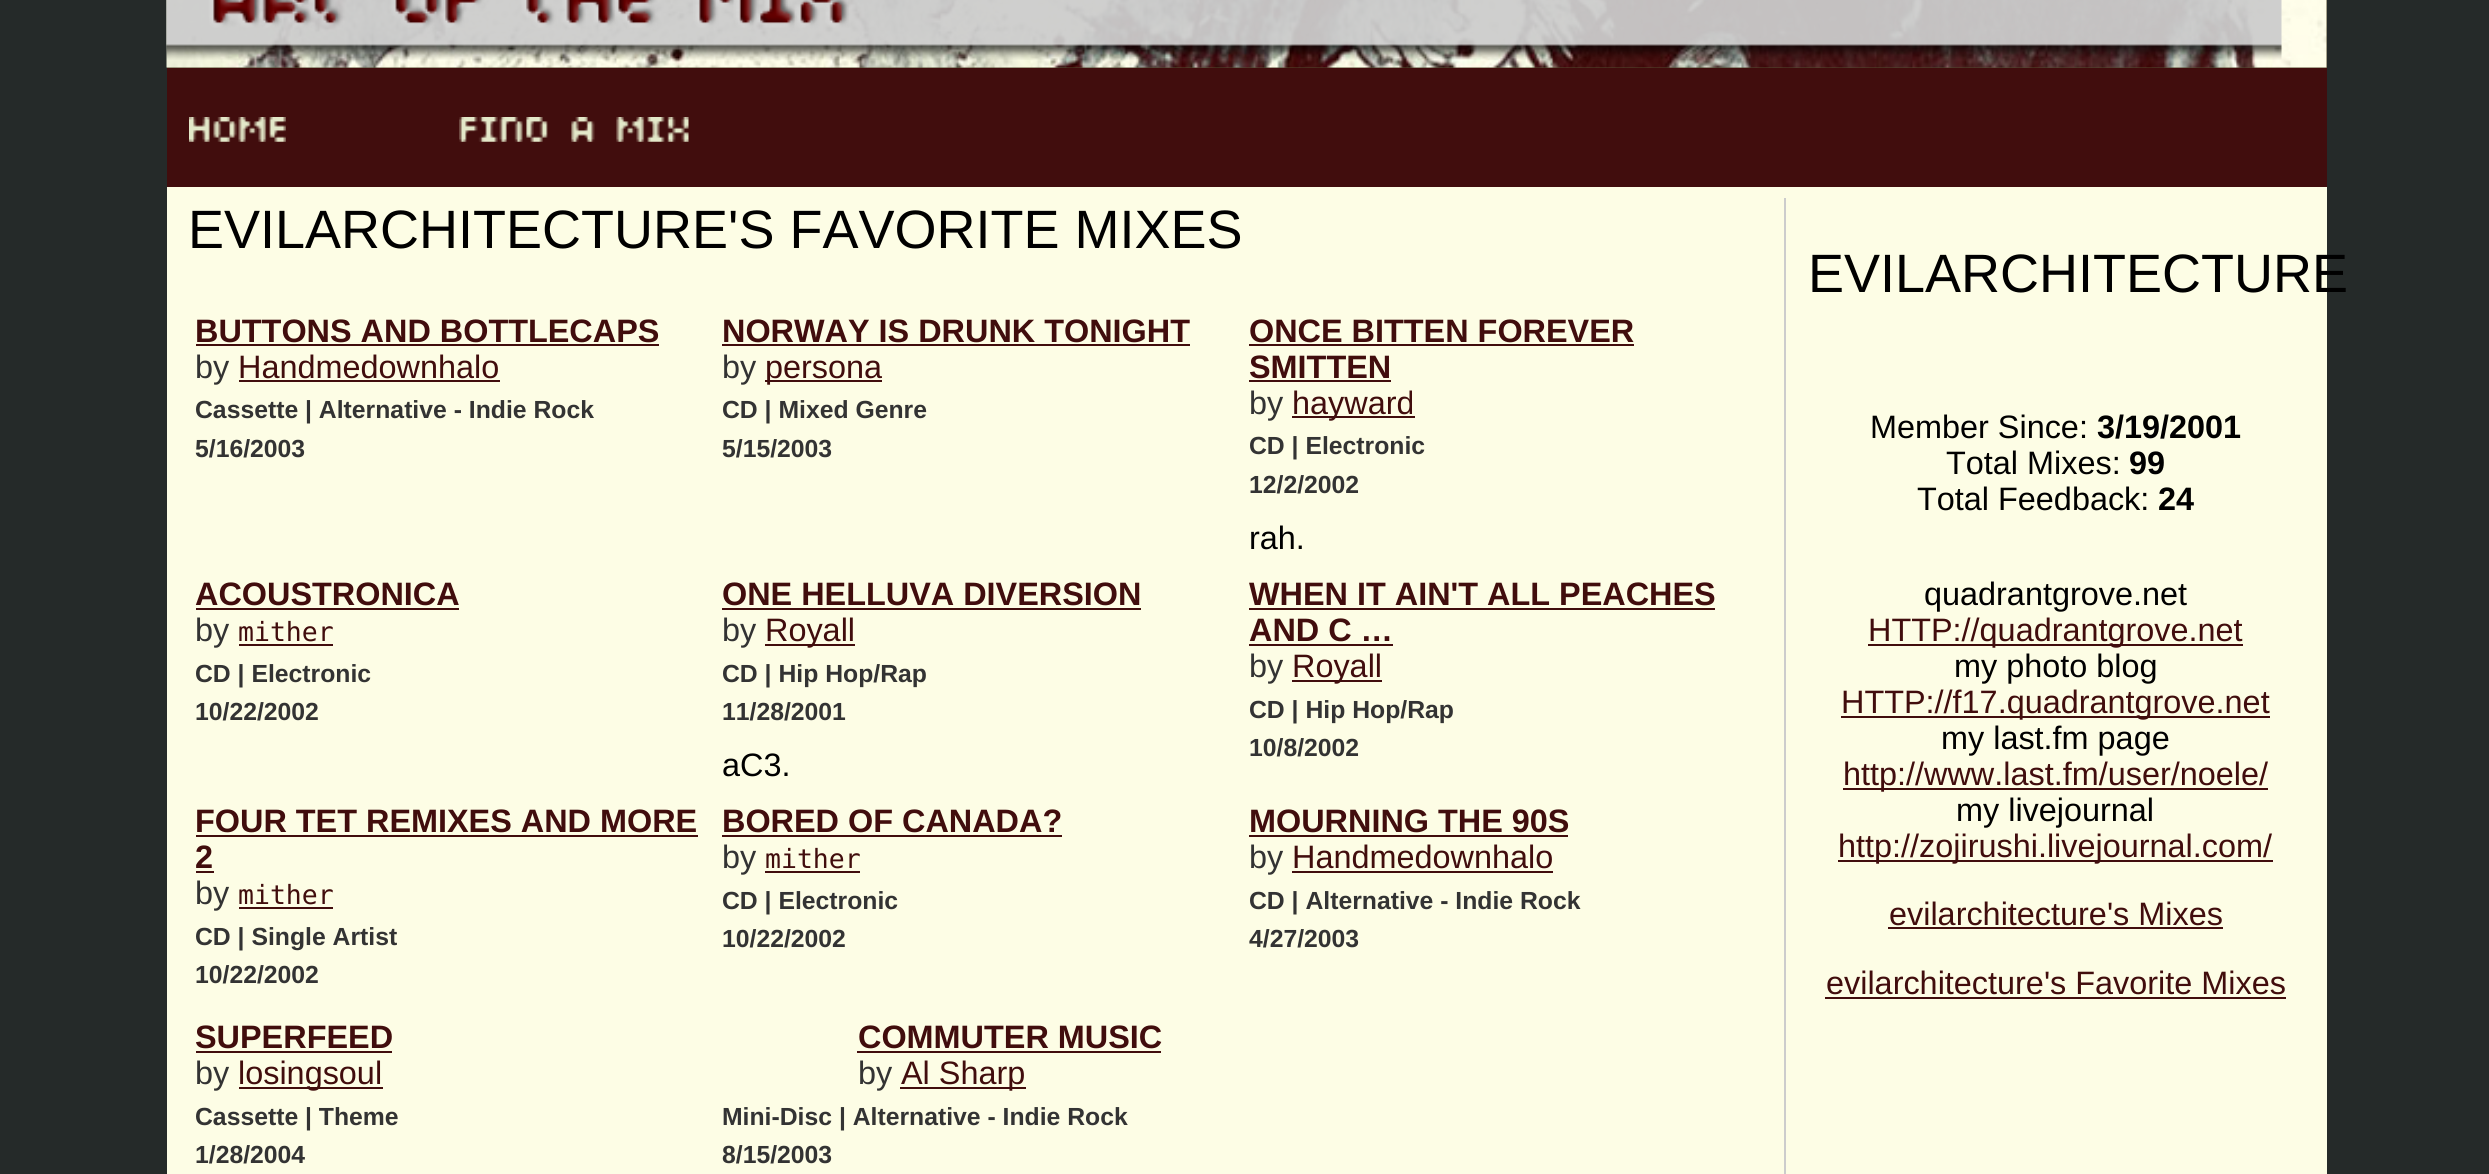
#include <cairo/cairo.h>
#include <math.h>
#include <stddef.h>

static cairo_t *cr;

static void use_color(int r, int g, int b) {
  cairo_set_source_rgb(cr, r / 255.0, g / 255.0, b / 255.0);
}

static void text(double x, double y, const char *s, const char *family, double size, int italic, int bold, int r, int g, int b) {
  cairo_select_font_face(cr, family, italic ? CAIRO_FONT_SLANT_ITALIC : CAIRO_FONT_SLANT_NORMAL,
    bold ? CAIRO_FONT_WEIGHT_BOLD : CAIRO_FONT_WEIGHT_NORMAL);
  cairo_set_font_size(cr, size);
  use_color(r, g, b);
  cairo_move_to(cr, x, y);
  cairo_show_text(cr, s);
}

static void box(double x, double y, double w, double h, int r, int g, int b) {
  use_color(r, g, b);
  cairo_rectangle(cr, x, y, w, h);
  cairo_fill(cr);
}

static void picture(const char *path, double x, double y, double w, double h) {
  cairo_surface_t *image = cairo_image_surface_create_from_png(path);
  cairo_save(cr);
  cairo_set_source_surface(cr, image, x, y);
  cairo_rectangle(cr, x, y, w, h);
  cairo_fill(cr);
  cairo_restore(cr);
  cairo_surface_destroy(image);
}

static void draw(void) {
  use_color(37, 42, 41);
  cairo_paint(cr);
  box(167, 187, 2160, 987, 253, 253, 229);
  box(167, 0, 2160, 68, 82, 75, 46);
  picture("img_01.png", 166, 0, 2161, 68);
  picture("img_02.png", 166, 0, 2116, 60);
  box(167, 68, 2160, 119, 65, 13, 13);
  picture("img_03.png", 189, 117, 97, 25);
  picture("img_04.png", 459, 117, 230, 25);
  box(1784, 198, 2, 976, 204, 204, 204);
  box(196, 344, 463, 2, 65, 13, 13);
  box(239, 380, 261, 2, 65, 13, 13);
  box(722, 344, 468, 2, 65, 13, 13);
  box(765, 380, 117, 2, 65, 13, 13);
  box(1249, 344, 385, 2, 65, 13, 13);
  box(1249, 380, 142, 2, 65, 13, 13);
  box(1292, 416, 123, 2, 65, 13, 13);
  box(196, 608, 263, 2, 65, 13, 13);
  box(239, 644, 94, 2, 65, 13, 13);
  box(722, 608, 419, 2, 65, 13, 13);
  box(765, 644, 90, 2, 65, 13, 13);
  box(1249, 608, 466, 2, 65, 13, 13);
  box(1249, 644, 144, 2, 65, 13, 13);
  box(1292, 680, 90, 2, 65, 13, 13);
  box(196, 835, 502, 2, 65, 13, 13);
  box(196, 871, 18, 2, 65, 13, 13);
  box(239, 907, 94, 2, 65, 13, 13);
  box(722, 835, 340, 2, 65, 13, 13);
  box(765, 871, 95, 2, 65, 13, 13);
  box(1249, 835, 319, 2, 65, 13, 13);
  box(1292, 871, 261, 2, 65, 13, 13);
  box(196, 1051, 196, 2, 65, 13, 13);
  box(239, 1087, 144, 2, 65, 13, 13);
  box(857, 1051, 304, 2, 65, 13, 13);
  box(900, 1087, 126, 2, 65, 13, 13);
  box(1868, 644, 375, 2, 65, 13, 13);
  box(1841, 716, 429, 2, 65, 13, 13);
  box(1843, 788, 425, 2, 65, 13, 13);
  box(1838, 860, 435, 2, 65, 13, 13);
  box(1888, 927, 335, 2, 65, 13, 13);
  box(1825, 997, 461, 2, 65, 13, 13);
  text(188, 248, "EVILARCHITECTURE'S FAVORITE MIXES", "Liberation Sans", 54, 0, 0, 0, 0, 0);
  text(195, 342, "BUTTONS AND BOTTLECAPS", "Liberation Sans", 32.4, 0, 1, 65, 13, 13);
  text(195, 378, "by", "Liberation Sans", 32.4, 0, 0, 51, 51, 51);
  text(238, 378, "Handmedownhalo", "Liberation Sans", 32.4, 0, 0, 65, 13, 13);
  text(195, 418, "Cassette | Alternative - Indie Rock", "Liberation Sans", 24.75, 0, 1, 51, 51, 51);
  text(195, 457, "5/16/2003", "Liberation Sans", 24.75, 0, 1, 51, 51, 51);
  text(722, 342, "NORWAY IS DRUNK TONIGHT", "Liberation Sans", 32.4, 0, 1, 65, 13, 13);
  text(722, 378, "by", "Liberation Sans", 32.4, 0, 0, 51, 51, 51);
  text(765, 378, "persona", "Liberation Sans", 32.4, 0, 0, 65, 13, 13);
  text(722, 418, "CD | Mixed Genre", "Liberation Sans", 24.75, 0, 1, 51, 51, 51);
  text(722, 457, "5/15/2003", "Liberation Sans", 24.75, 0, 1, 51, 51, 51);
  text(1249, 342, "ONCE BITTEN FOREVER", "Liberation Sans", 32.4, 0, 1, 65, 13, 13);
  text(1249, 378, "SMITTEN", "Liberation Sans", 32.4, 0, 1, 65, 13, 13);
  text(1249, 414, "by", "Liberation Sans", 32.4, 0, 0, 51, 51, 51);
  text(1292, 414, "hayward", "Liberation Sans", 32.4, 0, 0, 65, 13, 13);
  text(1249, 454, "CD | Electronic", "Liberation Sans", 24.75, 0, 1, 51, 51, 51);
  text(1249, 493, "12/2/2002", "Liberation Sans", 24.75, 0, 1, 51, 51, 51);
  text(1249, 549, "rah.", "Liberation Sans", 32.4, 0, 0, 0, 0, 0);
  text(195, 605, "ACOUSTRONICA", "Liberation Sans", 32.4, 0, 1, 65, 13, 13);
  text(195, 641, "by", "Liberation Sans", 32.4, 0, 0, 51, 51, 51);
  text(238, 641, "mither", "DejaVu Sans Mono", 26.5, 0, 0, 65, 13, 13);
  text(195, 682, "CD | Electronic", "Liberation Sans", 24.75, 0, 1, 51, 51, 51);
  text(195, 720, "10/22/2002", "Liberation Sans", 24.75, 0, 1, 51, 51, 51);
  text(722, 605, "ONE HELLUVA DIVERSION", "Liberation Sans", 32.4, 0, 1, 65, 13, 13);
  text(722, 641, "by", "Liberation Sans", 32.4, 0, 0, 51, 51, 51);
  text(765, 641, "Royall", "Liberation Sans", 32.4, 0, 0, 65, 13, 13);
  text(722, 682, "CD | Hip Hop/Rap", "Liberation Sans", 24.75, 0, 1, 51, 51, 51);
  text(722, 720, "11/28/2001", "Liberation Sans", 24.75, 0, 1, 51, 51, 51);
  text(722, 776, "aC3.", "Liberation Sans", 32.4, 0, 0, 0, 0, 0);
  text(1249, 605, "WHEN IT AIN'T ALL PEACHES", "Liberation Sans", 32.4, 0, 1, 65, 13, 13);
  text(1249, 641, "AND C …", "Liberation Sans", 32.4, 0, 1, 65, 13, 13);
  text(1249, 677, "by", "Liberation Sans", 32.4, 0, 0, 51, 51, 51);
  text(1292, 677, "Royall", "Liberation Sans", 32.4, 0, 0, 65, 13, 13);
  text(1249, 718, "CD | Hip Hop/Rap", "Liberation Sans", 24.75, 0, 1, 51, 51, 51);
  text(1249, 756, "10/8/2002", "Liberation Sans", 24.75, 0, 1, 51, 51, 51);
  text(195, 832, "FOUR TET REMIXES AND MORE", "Liberation Sans", 32.4, 0, 1, 65, 13, 13);
  text(195, 868, "2", "Liberation Sans", 32.4, 0, 1, 65, 13, 13);
  text(195, 904, "by", "Liberation Sans", 32.4, 0, 0, 51, 51, 51);
  text(238, 904, "mither", "DejaVu Sans Mono", 26.5, 0, 0, 65, 13, 13);
  text(195, 945, "CD | Single Artist", "Liberation Sans", 24.75, 0, 1, 51, 51, 51);
  text(195, 983, "10/22/2002", "Liberation Sans", 24.75, 0, 1, 51, 51, 51);
  text(722, 832, "BORED OF CANADA?", "Liberation Sans", 32.4, 0, 1, 65, 13, 13);
  text(722, 868, "by", "Liberation Sans", 32.4, 0, 0, 51, 51, 51);
  text(765, 868, "mither", "DejaVu Sans Mono", 26.5, 0, 0, 65, 13, 13);
  text(722, 909, "CD | Electronic", "Liberation Sans", 24.75, 0, 1, 51, 51, 51);
  text(722, 947, "10/22/2002", "Liberation Sans", 24.75, 0, 1, 51, 51, 51);
  text(1249, 832, "MOURNING THE 90S", "Liberation Sans", 32.4, 0, 1, 65, 13, 13);
  text(1249, 868, "by", "Liberation Sans", 32.4, 0, 0, 51, 51, 51);
  text(1292, 868, "Handmedownhalo", "Liberation Sans", 32.4, 0, 0, 65, 13, 13);
  text(1249, 909, "CD | Alternative - Indie Rock", "Liberation Sans", 24.75, 0, 1, 51, 51, 51);
  text(1249, 947, "4/27/2003", "Liberation Sans", 24.75, 0, 1, 51, 51, 51);
  text(195, 1048, "SUPERFEED", "Liberation Sans", 32.4, 0, 1, 65, 13, 13);
  text(195, 1084, "by", "Liberation Sans", 32.4, 0, 0, 51, 51, 51);
  text(238, 1084, "losingsoul", "Liberation Sans", 32.4, 0, 0, 65, 13, 13);
  text(195, 1125, "Cassette | Theme", "Liberation Sans", 24.75, 0, 1, 51, 51, 51);
  text(195, 1163, "1/28/2004", "Liberation Sans", 24.75, 0, 1, 51, 51, 51);
  text(858, 1048, "COMMUTER MUSIC", "Liberation Sans", 32.4, 0, 1, 65, 13, 13);
  text(858, 1084, "by", "Liberation Sans", 32.4, 0, 0, 51, 51, 51);
  text(901, 1084, "Al Sharp", "Liberation Sans", 32.4, 0, 0, 65, 13, 13);
  text(722, 1125, "Mini-Disc | Alternative - Indie Rock", "Liberation Sans", 24.75, 0, 1, 51, 51, 51);
  text(722, 1163, "8/15/2003", "Liberation Sans", 24.75, 0, 1, 51, 51, 51);
  text(1808, 292, "EVILARCHITECTURE", "Liberation Sans", 54, 0, 0, 0, 0, 0);
  text(1870, 438, "Member Since:", "Liberation Sans", 32.4, 0, 0, 0, 0, 0);
  text(2097, 438, "3/19/2001", "Liberation Sans", 32.4, 0, 1, 0, 0, 0);
  text(1946, 474, "Total Mixes:", "Liberation Sans", 32.4, 0, 0, 0, 0, 0);
  text(2129, 474, "99", "Liberation Sans", 32.4, 0, 1, 0, 0, 0);
  text(1917, 510, "Total Feedback:", "Liberation Sans", 32.4, 0, 0, 0, 0, 0);
  text(2158, 510, "24", "Liberation Sans", 32.4, 0, 1, 0, 0, 0);
  text(1924, 605, "quadrantgrove.net", "Liberation Sans", 32.4, 0, 0, 0, 0, 0);
  text(1868, 641, "HTTP://quadrantgrove.net", "Liberation Sans", 32.4, 0, 0, 65, 13, 13);
  text(1954, 677, "my photo blog", "Liberation Sans", 32.4, 0, 0, 0, 0, 0);
  text(1841, 713, "HTTP://f17.quadrantgrove.net", "Liberation Sans", 32.4, 0, 0, 65, 13, 13);
  text(1941, 749, "my last.fm page", "Liberation Sans", 32.4, 0, 0, 0, 0, 0);
  text(1843, 785, "http://www.last.fm/user/noele/", "Liberation Sans", 32.4, 0, 0, 65, 13, 13);
  text(1956, 821, "my livejournal", "Liberation Sans", 32.4, 0, 0, 0, 0, 0);
  text(1838, 857, "http://zojirushi.livejournal.com/", "Liberation Sans", 32.4, 0, 0, 65, 13, 13);
  text(1889, 925, "evilarchitecture's Mixes", "Liberation Sans", 32.4, 0, 0, 65, 13, 13);
  text(1826, 994, "evilarchitecture's Favorite Mixes", "Liberation Sans", 32.4, 0, 0, 65, 13, 13);
}

int main(void) {
  cairo_surface_t *surface = cairo_image_surface_create(CAIRO_FORMAT_RGB24, 2489, 1174);
  cr = cairo_create(surface);
  cairo_font_options_t *options = cairo_font_options_create();
  cairo_font_options_set_hint_metrics(options, CAIRO_HINT_METRICS_OFF);
  cairo_font_options_set_hint_style(options, CAIRO_HINT_STYLE_NONE);
  cairo_set_font_options(cr, options);
  cairo_set_miter_limit(cr, 4);
  draw();
  cairo_surface_write_to_png(surface, "out.png");
  cairo_font_options_destroy(options);
  cairo_destroy(cr);
  cairo_surface_destroy(surface);
  return 0;
}
